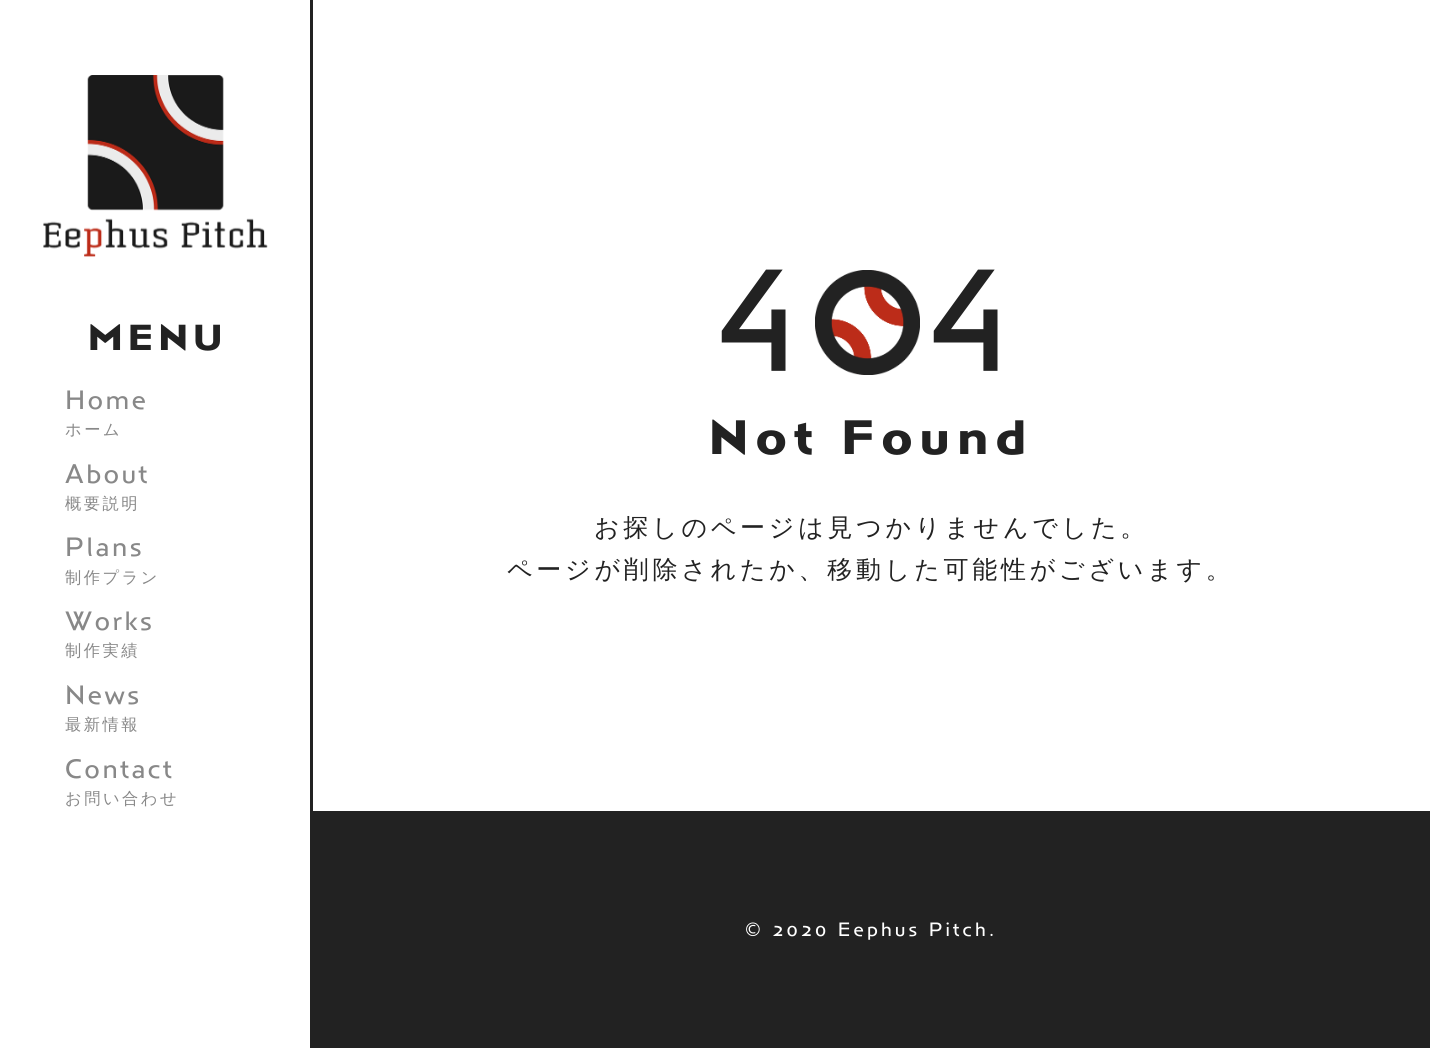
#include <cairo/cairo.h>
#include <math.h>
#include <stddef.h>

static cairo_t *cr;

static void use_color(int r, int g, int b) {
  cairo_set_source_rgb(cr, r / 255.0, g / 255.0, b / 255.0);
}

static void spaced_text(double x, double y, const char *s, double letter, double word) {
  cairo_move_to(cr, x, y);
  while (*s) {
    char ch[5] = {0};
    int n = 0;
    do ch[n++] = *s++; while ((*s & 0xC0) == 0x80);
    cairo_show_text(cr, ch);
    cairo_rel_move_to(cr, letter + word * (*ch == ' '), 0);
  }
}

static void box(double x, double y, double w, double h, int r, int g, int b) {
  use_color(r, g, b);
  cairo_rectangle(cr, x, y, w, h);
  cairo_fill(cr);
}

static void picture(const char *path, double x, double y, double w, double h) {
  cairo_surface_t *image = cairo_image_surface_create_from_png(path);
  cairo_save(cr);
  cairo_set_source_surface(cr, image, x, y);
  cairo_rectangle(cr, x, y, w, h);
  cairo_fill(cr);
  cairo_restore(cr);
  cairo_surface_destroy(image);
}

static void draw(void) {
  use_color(255, 255, 255);
  cairo_paint(cr);
  box(310, 0, 3, 1048, 34, 34, 34);
  picture("img_01.png", 43, 75, 225, 182);
  picture("img_02.png", 815, 270, 105, 105);
  box(313, 811, 1117, 237, 34, 34, 34);
  cairo_select_font_face(cr, "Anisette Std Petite", CAIRO_FONT_SLANT_NORMAL, CAIRO_FONT_WEIGHT_BOLD);
  cairo_set_font_size(cr, 37.5);
  spaced_text(88, 350, "MENU", 5.5, 0);
  cairo_select_font_face(cr, "Anisette Std Petite", CAIRO_FONT_SLANT_NORMAL, CAIRO_FONT_WEIGHT_NORMAL);
  cairo_set_font_size(cr, 27.5);
  use_color(136, 136, 136);
  spaced_text(65, 409, "Home", 2.5, 0);
  cairo_select_font_face(cr, "WenQuanYi Zen Hei Medium", CAIRO_FONT_SLANT_NORMAL, CAIRO_FONT_WEIGHT_NORMAL);
  cairo_set_font_size(cr, 16.25);
  spaced_text(65, 435, "ホーム", 2.5, 0);
  cairo_select_font_face(cr, "Anisette Std Petite", CAIRO_FONT_SLANT_NORMAL, CAIRO_FONT_WEIGHT_NORMAL);
  cairo_set_font_size(cr, 27.5);
  spaced_text(65, 483, "About", 2.5, 0);
  cairo_select_font_face(cr, "WenQuanYi Zen Hei Medium", CAIRO_FONT_SLANT_NORMAL, CAIRO_FONT_WEIGHT_NORMAL);
  cairo_set_font_size(cr, 16.25);
  spaced_text(65, 509, "概要説明", 2.5, 0);
  cairo_select_font_face(cr, "Anisette Std Petite", CAIRO_FONT_SLANT_NORMAL, CAIRO_FONT_WEIGHT_NORMAL);
  cairo_set_font_size(cr, 27.5);
  spaced_text(65, 556, "Plans", 2.5, 0);
  cairo_select_font_face(cr, "WenQuanYi Zen Hei Medium", CAIRO_FONT_SLANT_NORMAL, CAIRO_FONT_WEIGHT_NORMAL);
  cairo_set_font_size(cr, 16.25);
  spaced_text(65, 583, "制作プラン", 2.5, 0);
  cairo_select_font_face(cr, "Anisette Std Petite", CAIRO_FONT_SLANT_NORMAL, CAIRO_FONT_WEIGHT_NORMAL);
  cairo_set_font_size(cr, 27.5);
  spaced_text(65, 630, "Works", 2.5, 0);
  cairo_select_font_face(cr, "WenQuanYi Zen Hei Medium", CAIRO_FONT_SLANT_NORMAL, CAIRO_FONT_WEIGHT_NORMAL);
  cairo_set_font_size(cr, 16.25);
  spaced_text(65, 656, "制作実績", 2.5, 0);
  cairo_select_font_face(cr, "Anisette Std Petite", CAIRO_FONT_SLANT_NORMAL, CAIRO_FONT_WEIGHT_NORMAL);
  cairo_set_font_size(cr, 27.5);
  spaced_text(65, 704, "News", 2.5, 0);
  cairo_select_font_face(cr, "WenQuanYi Zen Hei Medium", CAIRO_FONT_SLANT_NORMAL, CAIRO_FONT_WEIGHT_NORMAL);
  cairo_set_font_size(cr, 16.25);
  spaced_text(65, 730, "最新情報", 2.5, 0);
  cairo_select_font_face(cr, "Anisette Std Petite", CAIRO_FONT_SLANT_NORMAL, CAIRO_FONT_WEIGHT_NORMAL);
  cairo_set_font_size(cr, 27.5);
  spaced_text(65, 778, "Contact", 2.5, 0);
  cairo_select_font_face(cr, "WenQuanYi Zen Hei Medium", CAIRO_FONT_SLANT_NORMAL, CAIRO_FONT_WEIGHT_NORMAL);
  cairo_set_font_size(cr, 16.25);
  spaced_text(65, 804, "お問い合わせ", 2.5, 0);
  cairo_select_font_face(cr, "Anisette Std Petite", CAIRO_FONT_SLANT_NORMAL, CAIRO_FONT_WEIGHT_NORMAL);
  cairo_set_font_size(cr, 150);
  use_color(34, 34, 34);
  spaced_text(712, 344, "4", 22, 0);
  spaced_text(924, 344, "4", 22, 0);
  cairo_select_font_face(cr, "Anisette Std Petite", CAIRO_FONT_SLANT_NORMAL, CAIRO_FONT_WEIGHT_BOLD);
  cairo_set_font_size(cr, 50);
  spaced_text(709, 454, "Not Found", 7.5, 0);
  cairo_select_font_face(cr, "WenQuanYi Zen Hei Medium", CAIRO_FONT_SLANT_NORMAL, CAIRO_FONT_WEIGHT_NORMAL);
  cairo_set_font_size(cr, 25);
  spaced_text(594, 536, "お探しのページは見つかりませんでした。", 3.75, 0);
  spaced_text(507, 578, "ページが削除されたか、移動した可能性がございます。", 3.75, 0);
  cairo_select_font_face(cr, "Anisette Std Petite", CAIRO_FONT_SLANT_NORMAL, CAIRO_FONT_WEIGHT_NORMAL);
  cairo_set_font_size(cr, 20);
  use_color(255, 255, 255);
  spaced_text(745, 936, "© 2020 Eephus Pitch.", 3, 0);
}

int main(void) {
  cairo_surface_t *surface = cairo_image_surface_create(CAIRO_FORMAT_RGB24, 1430, 1048);
  cr = cairo_create(surface);
  cairo_font_options_t *options = cairo_font_options_create();
  cairo_font_options_set_hint_metrics(options, CAIRO_HINT_METRICS_OFF);
  cairo_font_options_set_hint_style(options, CAIRO_HINT_STYLE_NONE);
  cairo_set_font_options(cr, options);
  cairo_set_miter_limit(cr, 4);
  draw();
  cairo_surface_write_to_png(surface, "out.png");
  cairo_font_options_destroy(options);
  cairo_destroy(cr);
  cairo_surface_destroy(surface);
  return 0;
}
